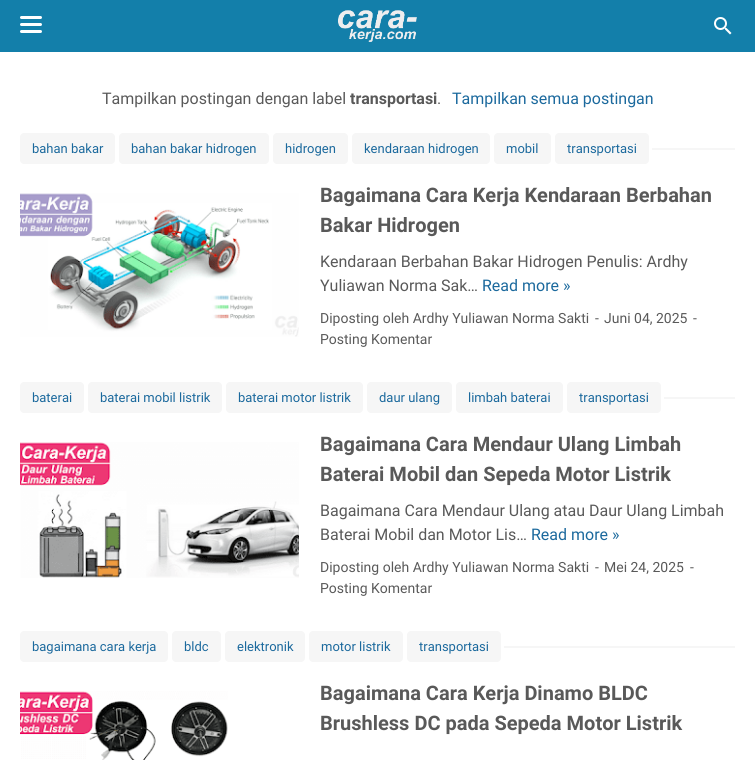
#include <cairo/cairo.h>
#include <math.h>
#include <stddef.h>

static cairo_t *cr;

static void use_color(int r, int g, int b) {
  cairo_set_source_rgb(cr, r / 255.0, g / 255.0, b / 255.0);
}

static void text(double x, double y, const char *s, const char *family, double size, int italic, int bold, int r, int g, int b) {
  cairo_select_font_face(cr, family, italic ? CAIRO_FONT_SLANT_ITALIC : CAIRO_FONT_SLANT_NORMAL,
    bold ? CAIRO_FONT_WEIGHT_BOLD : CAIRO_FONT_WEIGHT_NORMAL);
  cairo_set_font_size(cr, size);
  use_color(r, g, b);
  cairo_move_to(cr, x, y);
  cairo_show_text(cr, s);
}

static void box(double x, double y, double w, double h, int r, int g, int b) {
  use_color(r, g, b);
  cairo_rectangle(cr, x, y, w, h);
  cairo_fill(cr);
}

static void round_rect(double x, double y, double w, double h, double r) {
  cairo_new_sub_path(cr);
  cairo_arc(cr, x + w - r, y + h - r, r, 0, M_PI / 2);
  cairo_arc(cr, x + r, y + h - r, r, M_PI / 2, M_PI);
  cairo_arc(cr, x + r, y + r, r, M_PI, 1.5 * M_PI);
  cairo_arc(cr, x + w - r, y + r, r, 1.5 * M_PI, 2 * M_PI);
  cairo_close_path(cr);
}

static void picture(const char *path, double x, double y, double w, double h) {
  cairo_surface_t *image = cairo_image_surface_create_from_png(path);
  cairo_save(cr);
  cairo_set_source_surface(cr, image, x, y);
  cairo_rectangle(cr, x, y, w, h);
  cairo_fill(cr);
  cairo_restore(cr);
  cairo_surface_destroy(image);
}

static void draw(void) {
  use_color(255, 255, 255);
  cairo_paint(cr);
  box(0, 0, 755, 52, 19, 127, 170);
  use_color(255, 255, 255);
  round_rect(20, 16, 22, 3, 1.5);
  cairo_fill(cr);
  round_rect(20, 23, 22, 3, 1.5);
  cairo_fill(cr);
  round_rect(20, 30, 22, 3, 1.5);
  cairo_fill(cr);
  picture("img_01.png", 338, 10, 79, 32);
  picture("img_02.png", 714, 17, 18, 18);
  use_color(246, 246, 246);
  round_rect(20, 133, 95, 31, 4);
  cairo_fill(cr);
  round_rect(119, 133, 150, 31, 4);
  cairo_fill(cr);
  round_rect(273, 133, 75, 31, 4);
  cairo_fill(cr);
  round_rect(352, 133, 138, 31, 4);
  cairo_fill(cr);
  round_rect(494, 133, 57, 31, 4);
  cairo_fill(cr);
  round_rect(555, 133, 94, 31, 4);
  cairo_fill(cr);
  box(652, 148, 83, 2, 246, 246, 246);
  picture("img_03.png", 20, 193, 279, 144);
  round_rect(20, 382, 64, 31, 4);
  cairo_fill(cr);
  round_rect(88, 382, 134, 31, 4);
  cairo_fill(cr);
  round_rect(226, 382, 137, 31, 4);
  cairo_fill(cr);
  round_rect(367, 382, 85, 31, 4);
  cairo_fill(cr);
  round_rect(456, 382, 107, 31, 4);
  cairo_fill(cr);
  round_rect(567, 382, 94, 31, 4);
  cairo_fill(cr);
  box(664, 397, 71, 2, 246, 246, 246);
  picture("img_04.png", 20, 442, 279, 136);
  round_rect(20, 631, 148, 31, 4);
  cairo_fill(cr);
  round_rect(172, 631, 49, 31, 4);
  cairo_fill(cr);
  round_rect(225, 631, 80, 31, 4);
  cairo_fill(cr);
  round_rect(309, 631, 94, 31, 4);
  cairo_fill(cr);
  round_rect(407, 631, 94, 31, 4);
  cairo_fill(cr);
  box(504, 646, 231, 2, 246, 246, 246);
  picture("img_05.png", 20, 691, 208, 69);
  text(102, 104, "Tampilkan postingan dengan label", "Roboto", 16, 0, 0, 89, 89, 89);
  text(350, 104, "transportasi", "Roboto", 16, 0, 1, 89, 89, 89);
  text(437, 104, ".", "Roboto", 16, 0, 0, 89, 89, 89);
  text(452, 104, "Tampilkan semua postingan", "Roboto", 16, 0, 0, 27, 105, 157);
  text(32, 153, "bahan bakar", "Roboto", 13, 0, 0, 27, 105, 157);
  text(131, 153, "bahan bakar hidrogen", "Roboto", 13, 0, 0, 27, 105, 157);
  text(285, 153, "hidrogen", "Roboto", 13, 0, 0, 27, 105, 157);
  text(364, 153, "kendaraan hidrogen", "Roboto", 13, 0, 0, 27, 105, 157);
  text(506, 153, "mobil", "Roboto", 13, 0, 0, 27, 105, 157);
  text(567, 153, "transportasi", "Roboto", 13, 0, 0, 27, 105, 157);
  text(320, 202, "Bagaimana Cara Kerja Kendaraan Berbahan", "Roboto", 20, 0, 1, 89, 89, 89);
  text(320, 232, "Bakar Hidrogen", "Roboto", 20, 0, 1, 89, 89, 89);
  text(320, 267, "Kendaraan Berbahan Bakar Hidrogen Penulis: Ardhy", "Roboto", 16, 0, 0, 89, 89, 89);
  text(320, 291, "Yuliawan Norma Sak…", "Roboto", 16, 0, 0, 89, 89, 89);
  text(482, 291, "Read more »", "Roboto", 16, 0, 0, 27, 105, 157);
  text(320, 323, "Diposting oleh Ardhy Yuliawan Norma Sakti", "Roboto", 14, 0, 0, 89, 89, 89);
  text(595, 323, "-", "Roboto", 14, 0, 0, 89, 89, 89);
  text(604, 323, "Juni 04, 2025", "Roboto", 14, 0, 0, 89, 89, 89);
  text(693, 323, "-", "Roboto", 14, 0, 0, 89, 89, 89);
  text(320, 344, "Posting Komentar", "Roboto", 14, 0, 0, 89, 89, 89);
  text(32, 402, "baterai", "Roboto", 13, 0, 0, 27, 105, 157);
  text(100, 402, "baterai mobil listrik", "Roboto", 13, 0, 0, 27, 105, 157);
  text(238, 402, "baterai motor listrik", "Roboto", 13, 0, 0, 27, 105, 157);
  text(379, 402, "daur ulang", "Roboto", 13, 0, 0, 27, 105, 157);
  text(468, 402, "limbah baterai", "Roboto", 13, 0, 0, 27, 105, 157);
  text(579, 402, "transportasi", "Roboto", 13, 0, 0, 27, 105, 157);
  text(320, 451, "Bagaimana Cara Mendaur Ulang Limbah", "Roboto", 20, 0, 1, 89, 89, 89);
  text(320, 481, "Baterai Mobil dan Sepeda Motor Listrik", "Roboto", 20, 0, 1, 89, 89, 89);
  text(320, 516, "Bagaimana Cara Mendaur Ulang atau Daur Ulang Limbah", "Roboto", 16, 0, 0, 89, 89, 89);
  text(320, 540, "Baterai Mobil dan Motor Lis…", "Roboto", 16, 0, 0, 89, 89, 89);
  text(531, 540, "Read more »", "Roboto", 16, 0, 0, 27, 105, 157);
  text(320, 572, "Diposting oleh Ardhy Yuliawan Norma Sakti", "Roboto", 14, 0, 0, 89, 89, 89);
  text(595, 572, "-", "Roboto", 14, 0, 0, 89, 89, 89);
  text(604, 572, "Mei 24, 2025", "Roboto", 14, 0, 0, 89, 89, 89);
  text(690, 572, "-", "Roboto", 14, 0, 0, 89, 89, 89);
  text(320, 593, "Posting Komentar", "Roboto", 14, 0, 0, 89, 89, 89);
  text(32, 651, "bagaimana cara kerja", "Roboto", 13, 0, 0, 27, 105, 157);
  text(184, 651, "bldc", "Roboto", 13, 0, 0, 27, 105, 157);
  text(237, 651, "elektronik", "Roboto", 13, 0, 0, 27, 105, 157);
  text(321, 651, "motor listrik", "Roboto", 13, 0, 0, 27, 105, 157);
  text(419, 651, "transportasi", "Roboto", 13, 0, 0, 27, 105, 157);
  text(320, 700, "Bagaimana Cara Kerja Dinamo BLDC", "Roboto", 20, 0, 1, 89, 89, 89);
  text(320, 730, "Brushless DC pada Sepeda Motor Listrik", "Roboto", 20, 0, 1, 89, 89, 89);
}

int main(void) {
  cairo_surface_t *surface = cairo_image_surface_create(CAIRO_FORMAT_RGB24, 755, 760);
  cr = cairo_create(surface);
  cairo_font_options_t *options = cairo_font_options_create();
  cairo_font_options_set_hint_metrics(options, CAIRO_HINT_METRICS_OFF);
  cairo_font_options_set_hint_style(options, CAIRO_HINT_STYLE_NONE);
  cairo_set_font_options(cr, options);
  cairo_set_miter_limit(cr, 4);
  draw();
  cairo_surface_write_to_png(surface, "out.png");
  cairo_font_options_destroy(options);
  cairo_destroy(cr);
  cairo_surface_destroy(surface);
  return 0;
}
